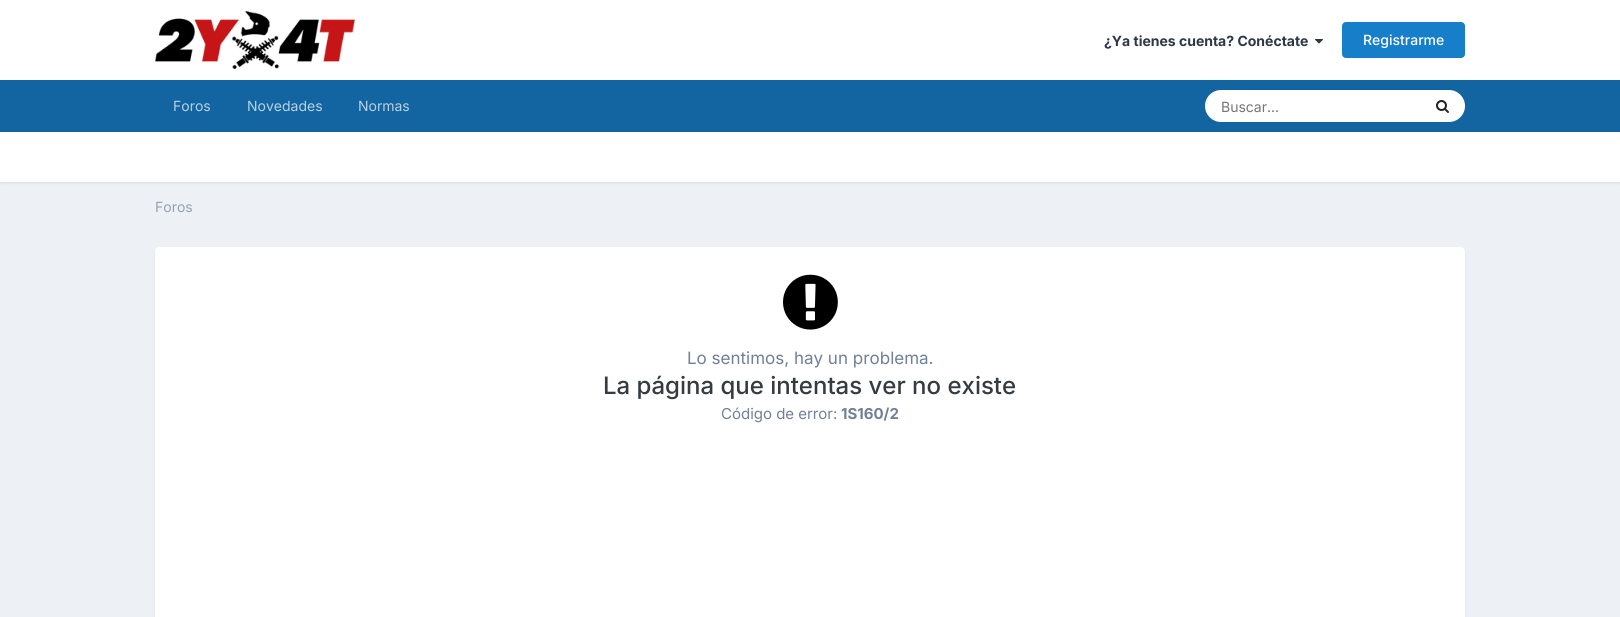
#include <cairo/cairo.h>
#include <math.h>
#include <stddef.h>

static cairo_t *cr;

static void use_color(int r, int g, int b) {
  cairo_set_source_rgb(cr, r / 255.0, g / 255.0, b / 255.0);
}

static void text(double x, double y, const char *s, const char *family, double size, int italic, int bold, int r, int g, int b) {
  cairo_select_font_face(cr, family, italic ? CAIRO_FONT_SLANT_ITALIC : CAIRO_FONT_SLANT_NORMAL,
    bold ? CAIRO_FONT_WEIGHT_BOLD : CAIRO_FONT_WEIGHT_NORMAL);
  cairo_set_font_size(cr, size);
  use_color(r, g, b);
  cairo_move_to(cr, x, y);
  cairo_show_text(cr, s);
}

static void box(double x, double y, double w, double h, int r, int g, int b) {
  use_color(r, g, b);
  cairo_rectangle(cr, x, y, w, h);
  cairo_fill(cr);
}

static void round_rect(double x, double y, double w, double h, double r) {
  cairo_new_sub_path(cr);
  cairo_arc(cr, x + w - r, y + h - r, r, 0, M_PI / 2);
  cairo_arc(cr, x + r, y + h - r, r, M_PI / 2, M_PI);
  cairo_arc(cr, x + r, y + r, r, M_PI, 1.5 * M_PI);
  cairo_arc(cr, x + w - r, y + r, r, 1.5 * M_PI, 2 * M_PI);
  cairo_close_path(cr);
}

static void shadow(double x, double y, double w, double h, double r, double blur, double alpha) {
  cairo_push_group_with_content(cr, CAIRO_CONTENT_ALPHA);
  cairo_set_operator(cr, CAIRO_OPERATOR_SOURCE);
  for (int i = 15; i >= -15 && fmin(w, h) + blur * i / 3 > 0; i -= 2) {
    double e = blur * i / 6;
    cairo_set_source_rgba(cr, 0, 0, 0, alpha * erfc((i - 1) / 8.5) / 2);
    round_rect(x - e, y - e, w + 2 * e, h + 2 * e, fmax(0, fmin(r + e + blur * .6, fmin(w, h) / 2 + e)));
    cairo_fill(cr);
  }
  cairo_pattern_t *soft = cairo_pop_group(cr);
  cairo_mask(cr, soft);
  cairo_pattern_destroy(soft);
}

static void picture(const char *path, double x, double y, double w, double h) {
  cairo_surface_t *image = cairo_image_surface_create_from_png(path);
  cairo_save(cr);
  cairo_set_source_surface(cr, image, x, y);
  cairo_rectangle(cr, x, y, w, h);
  cairo_fill(cr);
  cairo_restore(cr);
  cairo_surface_destroy(image);
}

static void draw(void) {
  use_color(237, 240, 244);
  cairo_paint(cr);
  box(0, 0, 1620, 80, 255, 255, 255);
  picture("img_01.png", 155, 11, 200, 58);
  picture("img_02.png", 1315, 39, 8, 5);
  use_color(23, 126, 201);
  round_rect(1342, 22, 123, 36, 4);
  cairo_fill(cr);
  box(0, 80, 1620, 52, 18, 101, 161);
  use_color(255, 255, 255);
  round_rect(1205, 90, 260, 32, 16);
  cairo_fill(cr);
  picture("img_03.png", 1436, 100, 13, 13);
  use_color(0, 0, 0);
  shadow(0, 133, 1620, 50, 0, 1, 0.1);
  box(0, 132, 1620, 50, 255, 255, 255);
  use_color(45, 55, 72);
  shadow(156, 250, 1308, 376, 3, 2, 0.1);
  use_color(255, 255, 255);
  round_rect(155, 247, 1310, 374, 4);
  cairo_fill(cr);
  picture("img_04.png", 783, 274, 55, 56);
  text(1104, 46, "¿Ya tienes cuenta? Conéctate", "Inter", 14, 0, 1, 45, 55, 72);
  text(1363, 45, "Registrarme", "Inter Medium", 14, 0, 0, 255, 255, 255);
  text(173, 111, "Foros", "Inter", 14, 0, 0, 184, 209, 227);
  text(247, 111, "Novedades", "Inter", 14, 0, 0, 184, 209, 227);
  text(358, 111, "Normas", "Inter", 14, 0, 0, 184, 209, 227);
  text(1221, 112, "Buscar...", "Inter", 14, 0, 0, 117, 117, 117);
  text(155, 212, "Foros", "Inter", 14, 0, 0, 150, 162, 178);
  text(687, 364, "Lo sentimos, hay un problema.", "Inter", 17, 0, 0, 113, 128, 150);
  text(603, 394, "La página que intentas ver no existe", "Inter Medium", 24, 0, 0, 53, 60, 65);
  text(721, 419, "Código de error:", "Inter", 15, 0, 0, 113, 128, 150);
  text(841, 419, "1S160/2", "Inter", 15, 0, 1, 113, 128, 150);
}

int main(void) {
  cairo_surface_t *surface = cairo_image_surface_create(CAIRO_FORMAT_RGB24, 1620, 617);
  cr = cairo_create(surface);
  cairo_font_options_t *options = cairo_font_options_create();
  cairo_font_options_set_hint_metrics(options, CAIRO_HINT_METRICS_OFF);
  cairo_font_options_set_hint_style(options, CAIRO_HINT_STYLE_NONE);
  cairo_set_font_options(cr, options);
  cairo_set_miter_limit(cr, 4);
  draw();
  cairo_surface_write_to_png(surface, "out.png");
  cairo_font_options_destroy(options);
  cairo_destroy(cr);
  cairo_surface_destroy(surface);
  return 0;
}
